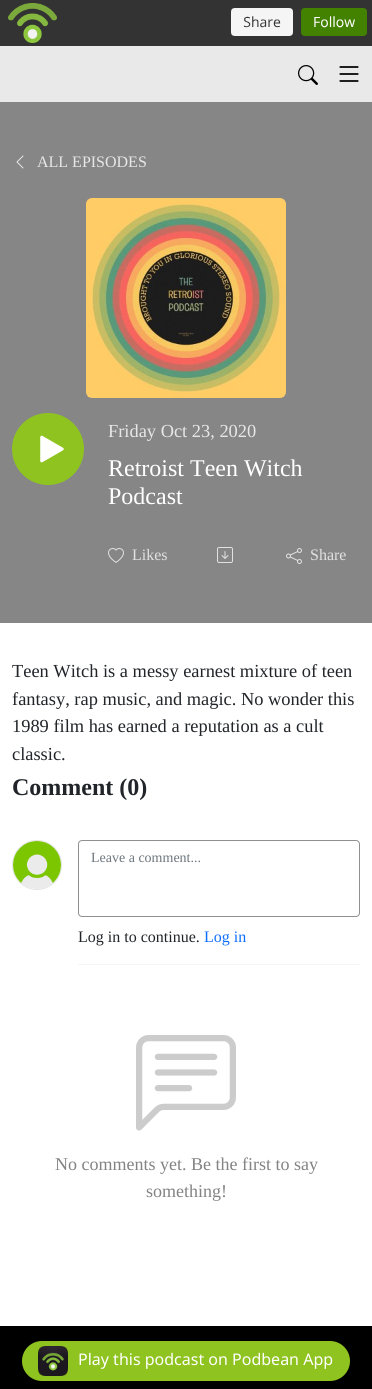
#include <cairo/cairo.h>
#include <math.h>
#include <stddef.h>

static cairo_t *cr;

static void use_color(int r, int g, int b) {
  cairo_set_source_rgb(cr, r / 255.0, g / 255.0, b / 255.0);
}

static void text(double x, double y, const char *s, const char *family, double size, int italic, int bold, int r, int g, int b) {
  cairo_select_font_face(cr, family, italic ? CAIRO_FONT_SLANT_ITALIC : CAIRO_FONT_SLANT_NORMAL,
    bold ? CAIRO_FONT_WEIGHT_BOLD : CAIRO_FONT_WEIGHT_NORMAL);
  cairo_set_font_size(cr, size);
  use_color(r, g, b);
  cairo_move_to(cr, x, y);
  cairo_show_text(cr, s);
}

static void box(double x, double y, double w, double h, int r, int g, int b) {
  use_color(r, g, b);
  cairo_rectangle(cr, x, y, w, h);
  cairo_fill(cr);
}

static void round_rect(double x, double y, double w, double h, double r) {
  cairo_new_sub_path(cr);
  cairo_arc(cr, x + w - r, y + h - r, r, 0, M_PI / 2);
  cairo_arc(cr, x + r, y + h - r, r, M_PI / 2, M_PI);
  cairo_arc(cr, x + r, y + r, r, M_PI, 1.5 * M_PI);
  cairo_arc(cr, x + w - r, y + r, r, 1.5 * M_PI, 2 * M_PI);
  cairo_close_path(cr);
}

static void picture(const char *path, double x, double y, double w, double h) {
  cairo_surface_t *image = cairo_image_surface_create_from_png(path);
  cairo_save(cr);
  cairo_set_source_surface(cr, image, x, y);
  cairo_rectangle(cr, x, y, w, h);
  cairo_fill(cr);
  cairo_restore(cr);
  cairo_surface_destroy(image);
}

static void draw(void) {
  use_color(255, 255, 255);
  cairo_paint(cr);
  box(0, 0, 372, 46, 51, 51, 51);
  picture("img_01.png", 8, 3, 359, 40);
  box(0, 46, 372, 56, 233, 233, 233);
  picture("img_02.png", 298, 65, 20, 20);
  picture("img_03.png", 339, 66, 20, 16);
  box(0, 102, 372, 521, 134, 134, 134);
  picture("img_04.png", 16, 155, 8, 14);
  picture("img_05.png", 86, 198, 200, 200);
  use_color(143, 195, 31);
  cairo_arc(cr, 48, 449, 36, 0, 2 * M_PI);
  cairo_fill(cr);
  picture("img_06.png", 40, 435, 24, 28);
  picture("img_07.png", 108, 548, 16, 15);
  picture("img_08.png", 217, 547, 16, 16);
  picture("img_09.png", 286, 548, 16, 16);
  cairo_arc(cr, 37, 865, 24.5, 0, 2 * M_PI);
  use_color(227, 227, 227);
  cairo_set_line_width(cr, 1);
  cairo_stroke(cr);
  picture("img_10.png", 13, 841, 48, 48);
  box(78, 964, 282, 1, 245, 245, 245);
  round_rect(78.5, 840.5, 281, 76, 3.5);
  use_color(144, 144, 144);
  cairo_stroke(cr);
  picture("img_11.png", 136, 1035, 100, 96);
  box(0, 1326, 372, 63, 0, 0, 0);
  use_color(143, 195, 31);
  round_rect(22, 1341, 328, 40, 20);
  cairo_fill(cr);
  picture("img_12.png", 38, 1346, 30, 30);
  text(37, 167, "ALL EPISODES", "Liberation Serif", 16, 0, 0, 231, 231, 231);
  text(108, 437, "Friday Oct 23, 2020", "Liberation Serif", 18.4, 0, 0, 231, 231, 231);
  text(108, 476, "Retroist Teen Witch", "Liberation Serif", 24, 0, 0, 255, 255, 255);
  text(108, 504, "Podcast", "Liberation Serif", 24, 0, 0, 255, 255, 255);
  text(132, 560, "Likes", "Liberation Serif", 16, 0, 0, 225, 225, 225);
  text(310, 560, "Share", "Liberation Serif", 16, 0, 0, 225, 225, 225);
  text(12, 677, "Teen Witch is a messy earnest mixture of teen", "Liberation Serif", 18.4, 0, 0, 33, 37, 41);
  text(12, 705, "fantasy, rap music, and magic. No wonder this", "Liberation Serif", 18.4, 0, 0, 33, 37, 41);
  text(12, 732, "1989 film has earned a reputation as a cult", "Liberation Serif", 18.4, 0, 0, 33, 37, 41);
  text(12, 760, "classic.", "Liberation Serif", 18.4, 0, 0, 33, 37, 41);
  text(12, 795, "Comment (0)", "Liberation Serif", 24, 0, 1, 33, 37, 41);
  text(91, 862, "Leave a comment...", "Liberation Serif", 14, 0, 0, 108, 117, 125);
  text(78, 942, "Log in to continue.", "Liberation Serif", 16, 0, 0, 33, 37, 41);
  text(204, 942, "Log in", "Liberation Serif", 16, 0, 0, 13, 110, 253);
  text(55, 1170, "No comments yet. Be the first to say", "Liberation Serif", 18, 0, 0, 131, 131, 131);
  text(146, 1197, "something!", "Liberation Serif", 18, 0, 0, 131, 131, 131);
  text(78, 1365, "Play this podcast on Podbean App", "Noto Sans", 16, 0, 0, 255, 255, 255);
}

int main(void) {
  cairo_surface_t *surface = cairo_image_surface_create(CAIRO_FORMAT_RGB24, 372, 1389);
  cr = cairo_create(surface);
  cairo_font_options_t *options = cairo_font_options_create();
  cairo_font_options_set_hint_metrics(options, CAIRO_HINT_METRICS_OFF);
  cairo_font_options_set_hint_style(options, CAIRO_HINT_STYLE_NONE);
  cairo_set_font_options(cr, options);
  cairo_set_miter_limit(cr, 4);
  draw();
  cairo_surface_write_to_png(surface, "out.png");
  cairo_font_options_destroy(options);
  cairo_destroy(cr);
  cairo_surface_destroy(surface);
  return 0;
}
